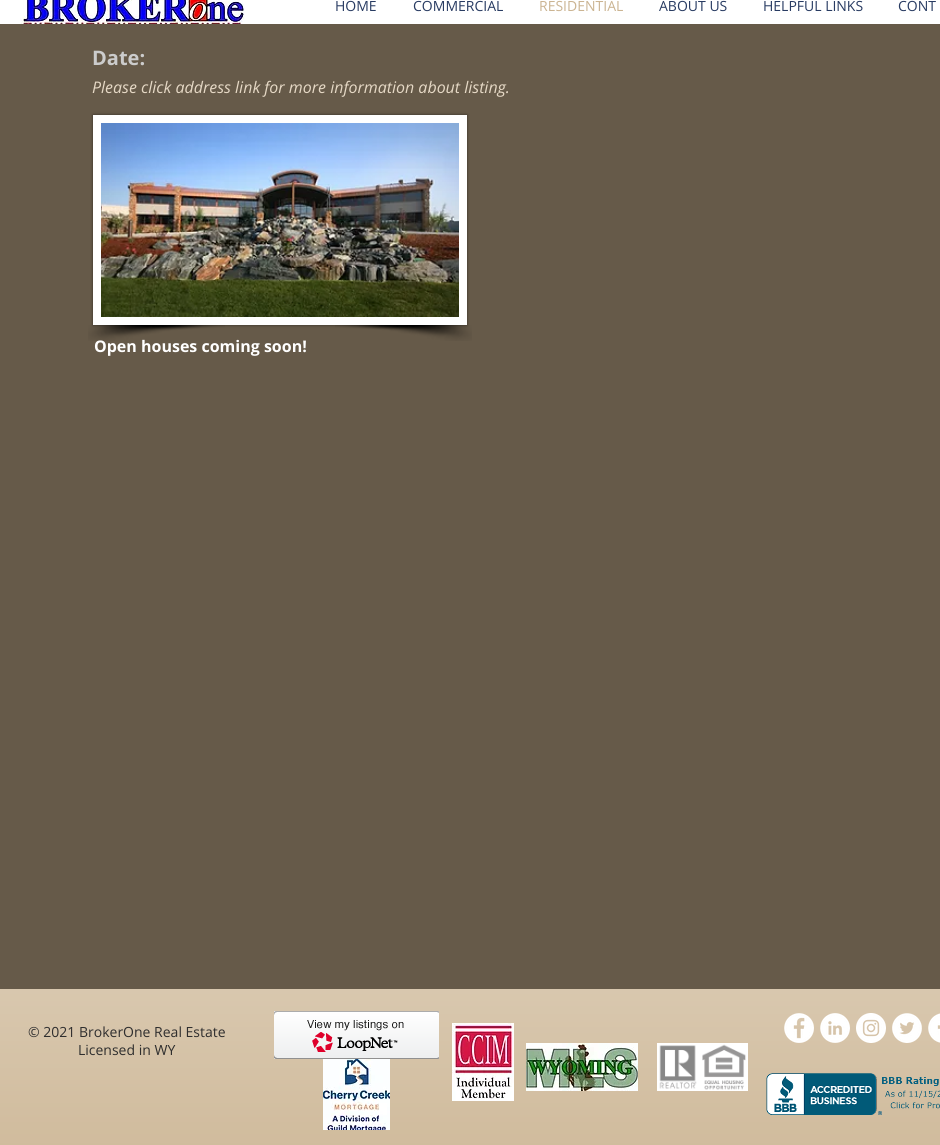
#include <cairo/cairo.h>
#include <math.h>
#include <stddef.h>

static cairo_t *cr;

static void use_color(int r, int g, int b) {
  cairo_set_source_rgb(cr, r / 255.0, g / 255.0, b / 255.0);
}

static void text(double x, double y, const char *s, const char *family, double size, int italic, int bold, int r, int g, int b) {
  cairo_select_font_face(cr, family, italic ? CAIRO_FONT_SLANT_ITALIC : CAIRO_FONT_SLANT_NORMAL,
    bold ? CAIRO_FONT_WEIGHT_BOLD : CAIRO_FONT_WEIGHT_NORMAL);
  cairo_set_font_size(cr, size);
  use_color(r, g, b);
  cairo_move_to(cr, x, y);
  cairo_show_text(cr, s);
}

static void box(double x, double y, double w, double h, int r, int g, int b) {
  use_color(r, g, b);
  cairo_rectangle(cr, x, y, w, h);
  cairo_fill(cr);
}

static void round_rect(double x, double y, double w, double h, double r) {
  cairo_new_sub_path(cr);
  cairo_arc(cr, x + w - r, y + h - r, r, 0, M_PI / 2);
  cairo_arc(cr, x + r, y + h - r, r, M_PI / 2, M_PI);
  cairo_arc(cr, x + r, y + r, r, M_PI, 1.5 * M_PI);
  cairo_arc(cr, x + w - r, y + r, r, 1.5 * M_PI, 2 * M_PI);
  cairo_close_path(cr);
}

static void shadow(double x, double y, double w, double h, double r, double blur, double alpha) {
  cairo_push_group_with_content(cr, CAIRO_CONTENT_ALPHA);
  cairo_set_operator(cr, CAIRO_OPERATOR_SOURCE);
  for (int i = 15; i >= -15 && fmin(w, h) + blur * i / 3 > 0; i -= 2) {
    double e = blur * i / 6;
    cairo_set_source_rgba(cr, 0, 0, 0, alpha * erfc((i - 1) / 8.5) / 2);
    round_rect(x - e, y - e, w + 2 * e, h + 2 * e, fmax(0, fmin(r + e + blur * .6, fmin(w, h) / 2 + e)));
    cairo_fill(cr);
  }
  cairo_pattern_t *soft = cairo_pop_group(cr);
  cairo_mask(cr, soft);
  cairo_pattern_destroy(soft);
}

static void picture(const char *path, double x, double y, double w, double h) {
  cairo_surface_t *image = cairo_image_surface_create_from_png(path);
  cairo_save(cr);
  cairo_set_source_surface(cr, image, x, y);
  cairo_rectangle(cr, x, y, w, h);
  cairo_fill(cr);
  cairo_restore(cr);
  cairo_surface_destroy(image);
}

static void draw(void) {
  use_color(255, 255, 255);
  cairo_paint(cr);
  picture("img_01.png", 20, 0, 225, 24);
  box(0, 24, 940, 965, 102, 90, 73);
  use_color(0, 0, 0);
  shadow(93, 115, 374, 210, 0, 1.5, 0.5);
  box(93, 115, 374, 210, 255, 255, 255);
  picture("img_02.png", 101, 123, 358, 194);
  picture("img_03.png", 88, 325, 137, 16);
  picture("img_04.png", 335, 325, 137, 16);
  box(0, 989, 940, 156, 203, 180, 146);
  picture("img_05.png", 0, 989, 940, 156);
  picture("img_06.png", 274, 1011, 165, 48);
  picture("img_07.png", 452, 1023, 62, 78);
  picture("img_08.png", 526, 1043, 112, 48);
  picture("img_09.png", 657, 1043, 91, 48);
  picture("img_10.png", 784, 1013, 30, 30);
  picture("img_11.png", 820, 1013, 30, 30);
  picture("img_12.png", 856, 1013, 30, 30);
  picture("img_13.png", 892, 1013, 30, 30);
  picture("img_14.png", 928, 1013, 12, 30);
  picture("img_15.png", 323, 1059, 67, 71);
  picture("img_16.png", 766, 1073, 174, 42);
  text(335, 11, "HOME", "Open Sans", 14, 0, 0, 40, 59, 98);
  text(413, 11, "COMMERCIAL", "Open Sans", 14, 0, 0, 40, 59, 98);
  text(539, 11, "RESIDENTIAL", "Open Sans", 14, 0, 0, 203, 180, 146);
  text(659, 11, "ABOUT US", "Open Sans", 14, 0, 0, 40, 59, 98);
  text(763, 11, "HELPFUL LINKS", "Open Sans", 14, 0, 0, 40, 59, 98);
  text(898, 11, "CONT", "Open Sans", 14, 0, 0, 40, 59, 98);
  text(92, 65, "Date:", "Open Sans", 20, 0, 1, 204, 204, 204);
  text(92, 93, "Please click address link for more information about listing.", "Open Sans", 16, 1, 0, 229, 216, 197);
  text(94, 352, "Open houses coming soon!", "Open Sans", 16, 0, 1, 255, 255, 255);
  text(28, 1037, "© 2021 BrokerOne Real Estate", "Open Sans", 14, 0, 0, 47, 46, 46);
  text(78, 1055, "Licensed in WY", "Open Sans", 14, 0, 0, 47, 46, 46);
}

int main(void) {
  cairo_surface_t *surface = cairo_image_surface_create(CAIRO_FORMAT_RGB24, 940, 1145);
  cr = cairo_create(surface);
  cairo_font_options_t *options = cairo_font_options_create();
  cairo_font_options_set_hint_metrics(options, CAIRO_HINT_METRICS_OFF);
  cairo_font_options_set_hint_style(options, CAIRO_HINT_STYLE_NONE);
  cairo_set_font_options(cr, options);
  cairo_set_miter_limit(cr, 4);
  draw();
  cairo_surface_write_to_png(surface, "out.png");
  cairo_font_options_destroy(options);
  cairo_destroy(cr);
  cairo_surface_destroy(surface);
  return 0;
}
